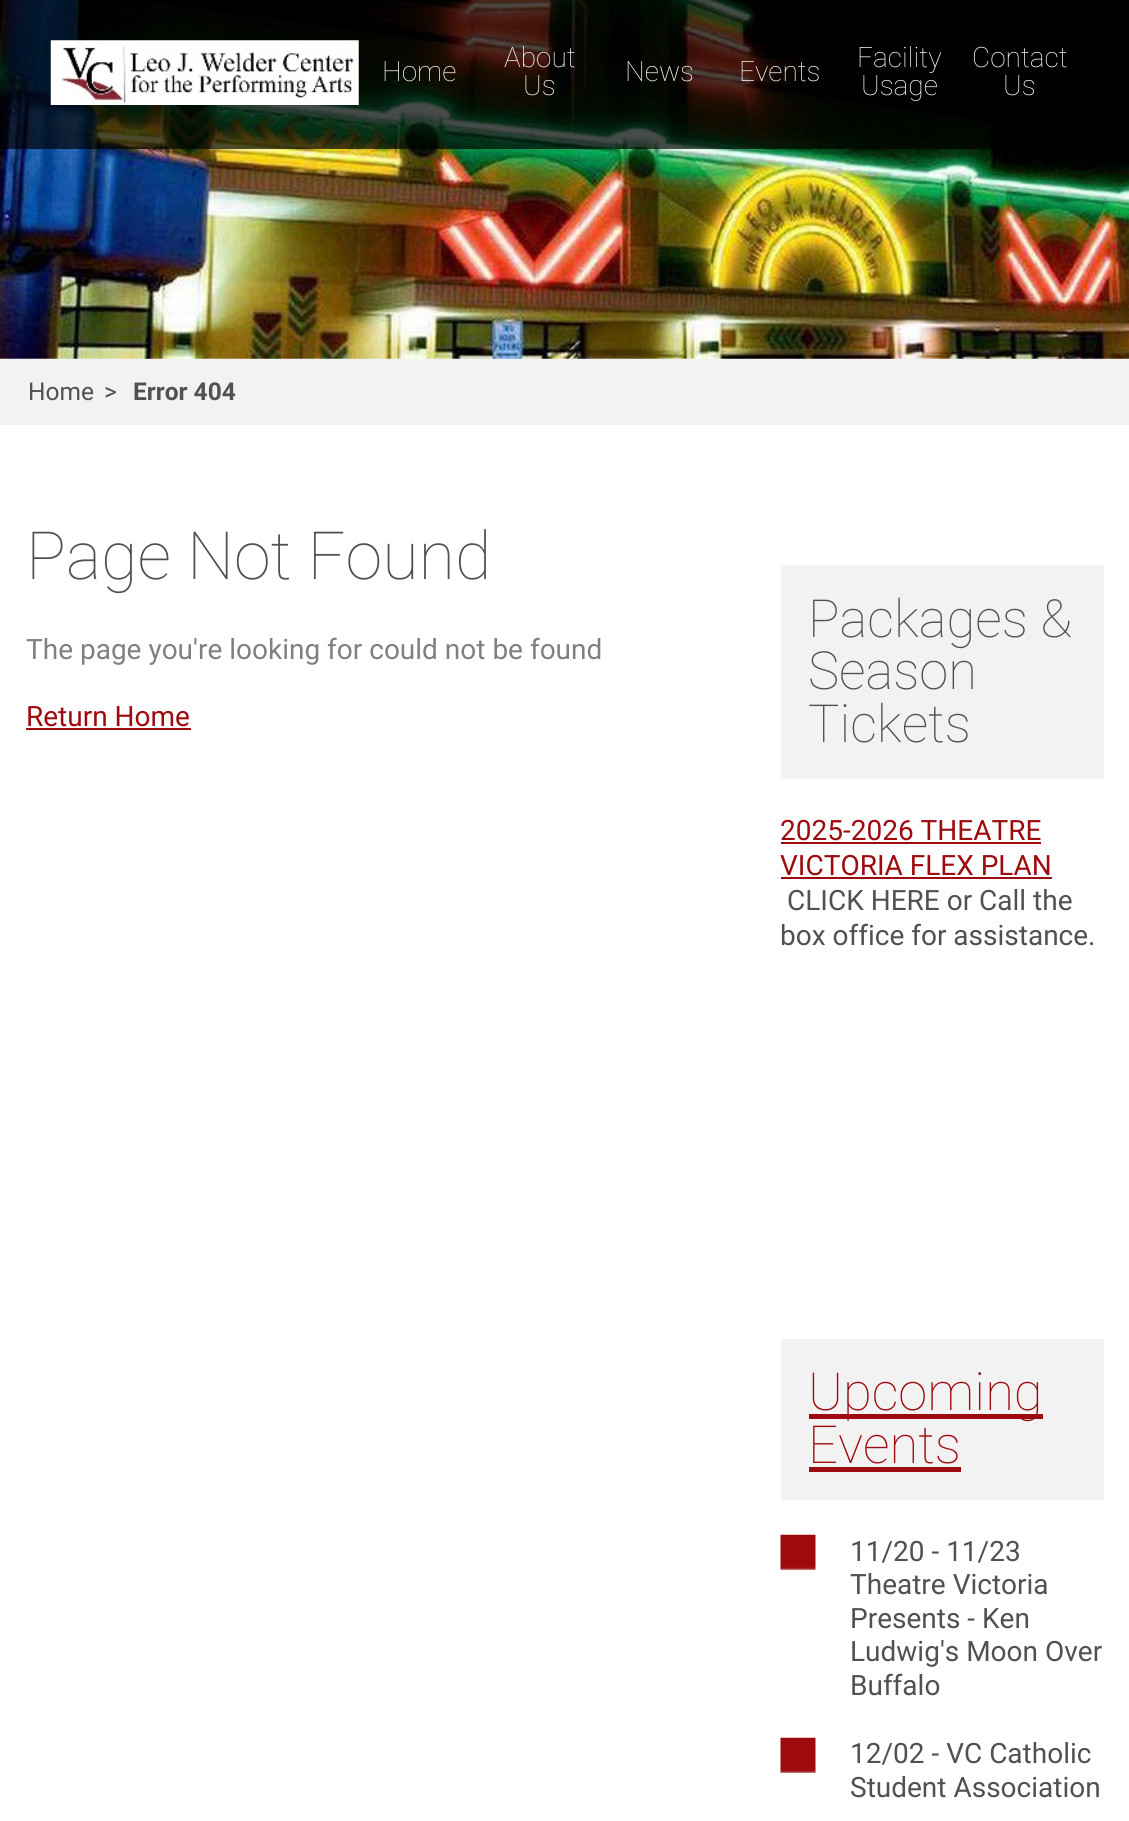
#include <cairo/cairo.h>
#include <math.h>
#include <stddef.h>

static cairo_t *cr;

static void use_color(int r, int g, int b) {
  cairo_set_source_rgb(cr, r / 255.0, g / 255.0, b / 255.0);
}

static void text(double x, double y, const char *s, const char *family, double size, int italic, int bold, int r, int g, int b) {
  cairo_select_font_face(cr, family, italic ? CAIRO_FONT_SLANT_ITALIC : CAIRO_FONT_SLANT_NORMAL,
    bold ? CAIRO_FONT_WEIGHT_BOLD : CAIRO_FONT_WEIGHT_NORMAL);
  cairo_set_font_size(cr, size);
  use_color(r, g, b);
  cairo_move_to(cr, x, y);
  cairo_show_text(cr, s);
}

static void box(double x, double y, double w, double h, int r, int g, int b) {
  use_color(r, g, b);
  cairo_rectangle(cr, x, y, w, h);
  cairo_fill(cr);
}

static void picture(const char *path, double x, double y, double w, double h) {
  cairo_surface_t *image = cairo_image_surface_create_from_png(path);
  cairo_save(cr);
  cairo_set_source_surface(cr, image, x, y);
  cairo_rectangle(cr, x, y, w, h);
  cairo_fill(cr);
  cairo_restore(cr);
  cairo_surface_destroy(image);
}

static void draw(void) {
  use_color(255, 255, 255);
  cairo_paint(cr);
  picture("img_01.png", 0, 0, 1129, 359);
  cairo_set_source_rgba(cr, 0, 0, 0, 0.7);
  cairo_rectangle(cr, 0, 0, 1001, 149);
  cairo_fill(cr);
  picture("img_02.png", 50, 40, 309, 65);
  box(0, 359, 1129, 66, 242, 242, 242);
  box(26, 728, 165, 2, 158, 11, 15);
  box(781, 565, 323, 214, 242, 242, 242);
  box(781, 842, 260, 2, 158, 11, 15);
  box(781, 877, 271, 2, 158, 11, 15);
  box(781, 1339, 323, 161, 242, 242, 242);
  box(809, 1414, 234, 5, 158, 11, 15);
  box(809, 1467, 152, 5, 158, 11, 15);
  picture("img_03.png", 780, 1534, 36, 36);
  picture("img_03.png", 780, 1737, 36, 36);
  text(382, 81, "Home", "Roboto Thin", 28, 0, 0, 255, 255, 255);
  text(504, 67, "About", "Roboto Thin", 28, 0, 0, 255, 255, 255);
  text(523, 95, "Us", "Roboto Thin", 28, 0, 0, 255, 255, 255);
  text(625, 81, "News", "Roboto Thin", 28, 0, 0, 255, 255, 255);
  text(739, 81, "Events", "Roboto Thin", 28, 0, 0, 255, 255, 255);
  text(857, 67, "Facility", "Roboto Thin", 28, 0, 0, 255, 255, 255);
  text(861, 95, "Usage", "Roboto Thin", 28, 0, 0, 255, 255, 255);
  text(972, 67, "Contact", "Roboto Thin", 28, 0, 0, 255, 255, 255);
  text(1003, 95, "Us", "Roboto Thin", 28, 0, 0, 255, 255, 255);
  text(28, 400, "Home", "Roboto", 24.5, 0, 0, 82, 81, 80);
  text(104, 400, ">", "Roboto", 24.5, 0, 0, 82, 81, 80);
  text(133, 400, "Error 404", "Roboto", 24.5, 0, 1, 82, 81, 80);
  text(26, 579, "Page Not Found", "Roboto Thin", 66.5, 0, 0, 82, 81, 80);
  text(26, 659, "The page you're looking for could not be found", "Roboto", 28, 0, 0, 128, 128, 128);
  text(26, 726, "Return Home", "Roboto", 28, 0, 0, 158, 11, 15);
  text(808, 637, "Packages &", "Roboto Thin", 52.5, 0, 0, 82, 81, 80);
  text(808, 689, "Season", "Roboto Thin", 52.5, 0, 0, 82, 81, 80);
  text(808, 742, "Tickets", "Roboto Thin", 52.5, 0, 0, 82, 81, 80);
  text(780, 840, "2025-2026 THEATRE", "Roboto", 28, 0, 0, 158, 11, 15);
  text(780, 875, "VICTORIA FLEX PLAN", "Roboto", 28, 0, 0, 158, 11, 15);
  text(787, 910, "CLICK HERE or Call the", "Roboto", 28, 0, 0, 82, 81, 80);
  text(780, 945, "box office for assistance.", "Roboto", 28, 0, 0, 82, 81, 80);
  text(808, 1410, "Upcoming", "Roboto Thin", 52.5, 0, 0, 158, 11, 15);
  text(808, 1463, "Events", "Roboto Thin", 52.5, 0, 0, 158, 11, 15);
  text(850, 1561, "11/20 - 11/23", "Roboto", 28, 0, 0, 82, 81, 80);
  text(850, 1594, "Theatre Victoria", "Roboto", 28, 0, 0, 82, 81, 80);
  text(850, 1628, "Presents - Ken", "Roboto", 28, 0, 0, 82, 81, 80);
  text(850, 1661, "Ludwig's Moon Over", "Roboto", 28, 0, 0, 82, 81, 80);
  text(850, 1695, "Buffalo", "Roboto", 28, 0, 0, 82, 81, 80);
  text(850, 1763, "12/02 - VC Catholic", "Roboto", 28, 0, 0, 82, 81, 80);
  text(850, 1797, "Student Association", "Roboto", 28, 0, 0, 82, 81, 80);
}

int main(void) {
  cairo_surface_t *surface = cairo_image_surface_create(CAIRO_FORMAT_RGB24, 1129, 1821);
  cr = cairo_create(surface);
  cairo_font_options_t *options = cairo_font_options_create();
  cairo_font_options_set_hint_metrics(options, CAIRO_HINT_METRICS_OFF);
  cairo_font_options_set_hint_style(options, CAIRO_HINT_STYLE_NONE);
  cairo_set_font_options(cr, options);
  cairo_set_miter_limit(cr, 4);
  draw();
  cairo_surface_write_to_png(surface, "out.png");
  cairo_font_options_destroy(options);
  cairo_destroy(cr);
  cairo_surface_destroy(surface);
  return 0;
}
